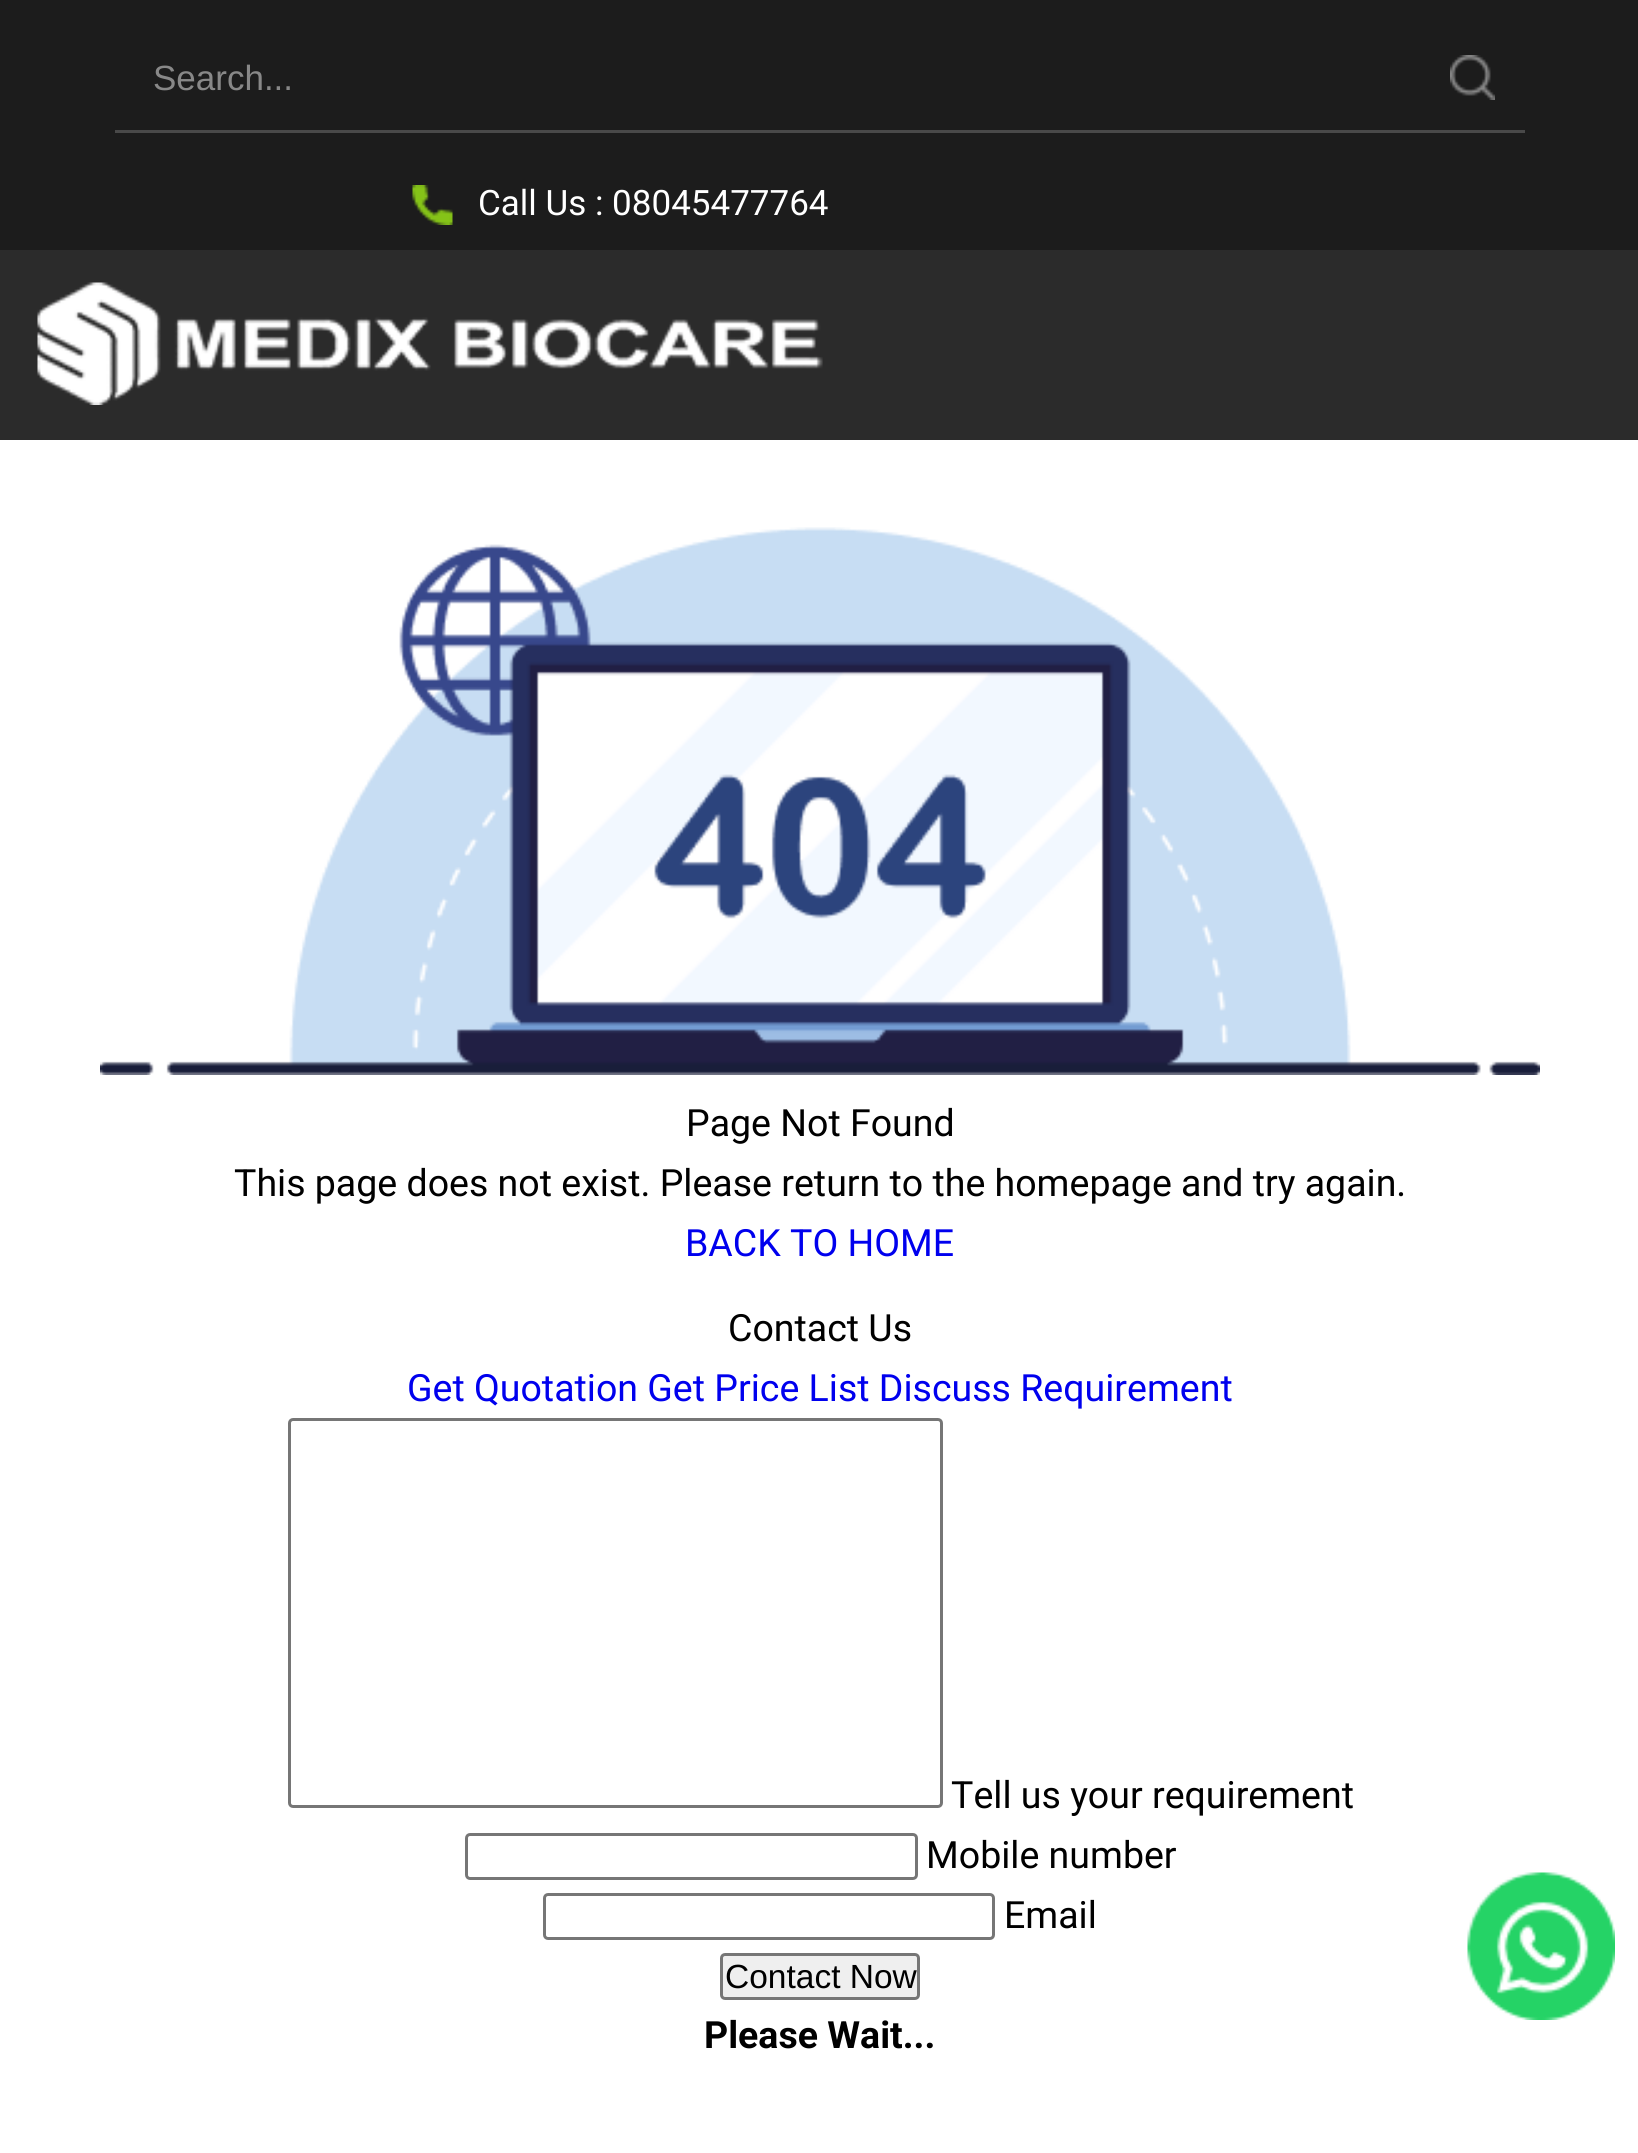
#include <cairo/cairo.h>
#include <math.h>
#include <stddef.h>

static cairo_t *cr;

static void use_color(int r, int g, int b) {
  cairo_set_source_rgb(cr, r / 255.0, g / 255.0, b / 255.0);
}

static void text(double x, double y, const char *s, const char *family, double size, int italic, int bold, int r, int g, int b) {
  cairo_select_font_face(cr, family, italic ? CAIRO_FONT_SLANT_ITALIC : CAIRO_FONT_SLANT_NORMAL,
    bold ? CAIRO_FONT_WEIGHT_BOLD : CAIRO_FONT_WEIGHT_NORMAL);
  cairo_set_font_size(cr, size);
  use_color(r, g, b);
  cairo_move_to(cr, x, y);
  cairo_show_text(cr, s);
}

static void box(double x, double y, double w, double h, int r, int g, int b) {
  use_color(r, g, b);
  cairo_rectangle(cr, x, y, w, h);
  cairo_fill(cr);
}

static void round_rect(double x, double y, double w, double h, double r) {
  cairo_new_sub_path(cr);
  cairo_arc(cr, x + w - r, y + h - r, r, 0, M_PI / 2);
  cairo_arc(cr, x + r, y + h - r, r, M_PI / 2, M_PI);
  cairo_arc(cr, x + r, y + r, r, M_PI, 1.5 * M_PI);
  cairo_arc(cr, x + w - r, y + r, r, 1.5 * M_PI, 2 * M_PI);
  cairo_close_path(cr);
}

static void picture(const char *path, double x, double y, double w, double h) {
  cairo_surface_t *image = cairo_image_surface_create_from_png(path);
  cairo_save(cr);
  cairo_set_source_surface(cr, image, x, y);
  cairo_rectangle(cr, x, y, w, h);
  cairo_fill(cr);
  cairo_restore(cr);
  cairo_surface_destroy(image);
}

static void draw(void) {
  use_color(255, 255, 255);
  cairo_paint(cr);
  box(0, 0, 1638, 250, 28, 28, 28);
  box(115, 130, 1410, 3, 73, 73, 73);
  picture("img_01.png", 1450, 55, 45, 45);
  picture("img_02.png", 412, 185, 41, 40);
  box(0, 250, 1638, 190, 43, 43, 43);
  picture("img_03.png", 37, 282, 786, 123);
  picture("img_04.png", 100, 527, 1440, 548);
  round_rect(289.5, 1419.5, 652, 387, 3.5);
  use_color(118, 118, 118);
  cairo_set_line_width(cr, 3);
  cairo_stroke(cr);
  round_rect(466.5, 1834.5, 450, 44, 3.5);
  cairo_stroke(cr);
  round_rect(544.5, 1894.5, 449, 44, 3.5);
  cairo_stroke(cr);
  use_color(239, 239, 239);
  round_rect(721.5, 1954.5, 197, 44, 3.5);
  cairo_fill_preserve(cr);
  use_color(118, 118, 118);
  cairo_stroke(cr);
  picture("img_05.png", 1467, 1872, 148, 148);
  text(153, 90, "Search...", "Liberation Sans", 35, 0, 0, 136, 136, 136);
  text(478, 215, "Call Us : 08045477764", "Roboto", 35, 0, 0, 255, 255, 255);
  text(686, 1136, "Page Not Found", "Roboto", 37.5, 0, 0, 0, 0, 0);
  text(234, 1196, "This page does not exist. Please return to the homepage and try again.", "Roboto", 37.5, 0, 0, 0, 0, 0);
  text(685, 1256, "BACK TO HOME", "Roboto", 37.5, 0, 0, 0, 0, 238);
  text(728, 1341, "Contact Us", "Roboto", 37.5, 0, 0, 0, 0, 0);
  text(407, 1401, "Get Quotation Get Price List Discuss Requirement", "Roboto", 37.5, 0, 0, 0, 0, 238);
  text(951, 1808, "Tell us your requirement", "Roboto", 37.5, 0, 0, 0, 0, 0);
  text(926, 1868, "Mobile number", "Roboto", 37.5, 0, 0, 0, 0, 0);
  text(1004, 1928, "Email", "Roboto", 37.5, 0, 0, 0, 0, 0);
  text(725, 1988, "Contact Now", "Liberation Sans", 33.5, 0, 0, 0, 0, 0);
  text(704, 2048, "Please Wait...", "Roboto", 37.5, 0, 1, 0, 0, 0);
}

int main(void) {
  cairo_surface_t *surface = cairo_image_surface_create(CAIRO_FORMAT_RGB24, 1638, 2153);
  cr = cairo_create(surface);
  cairo_font_options_t *options = cairo_font_options_create();
  cairo_font_options_set_hint_metrics(options, CAIRO_HINT_METRICS_OFF);
  cairo_font_options_set_hint_style(options, CAIRO_HINT_STYLE_NONE);
  cairo_set_font_options(cr, options);
  cairo_set_miter_limit(cr, 4);
  draw();
  cairo_surface_write_to_png(surface, "out.png");
  cairo_font_options_destroy(options);
  cairo_destroy(cr);
  cairo_surface_destroy(surface);
  return 0;
}
